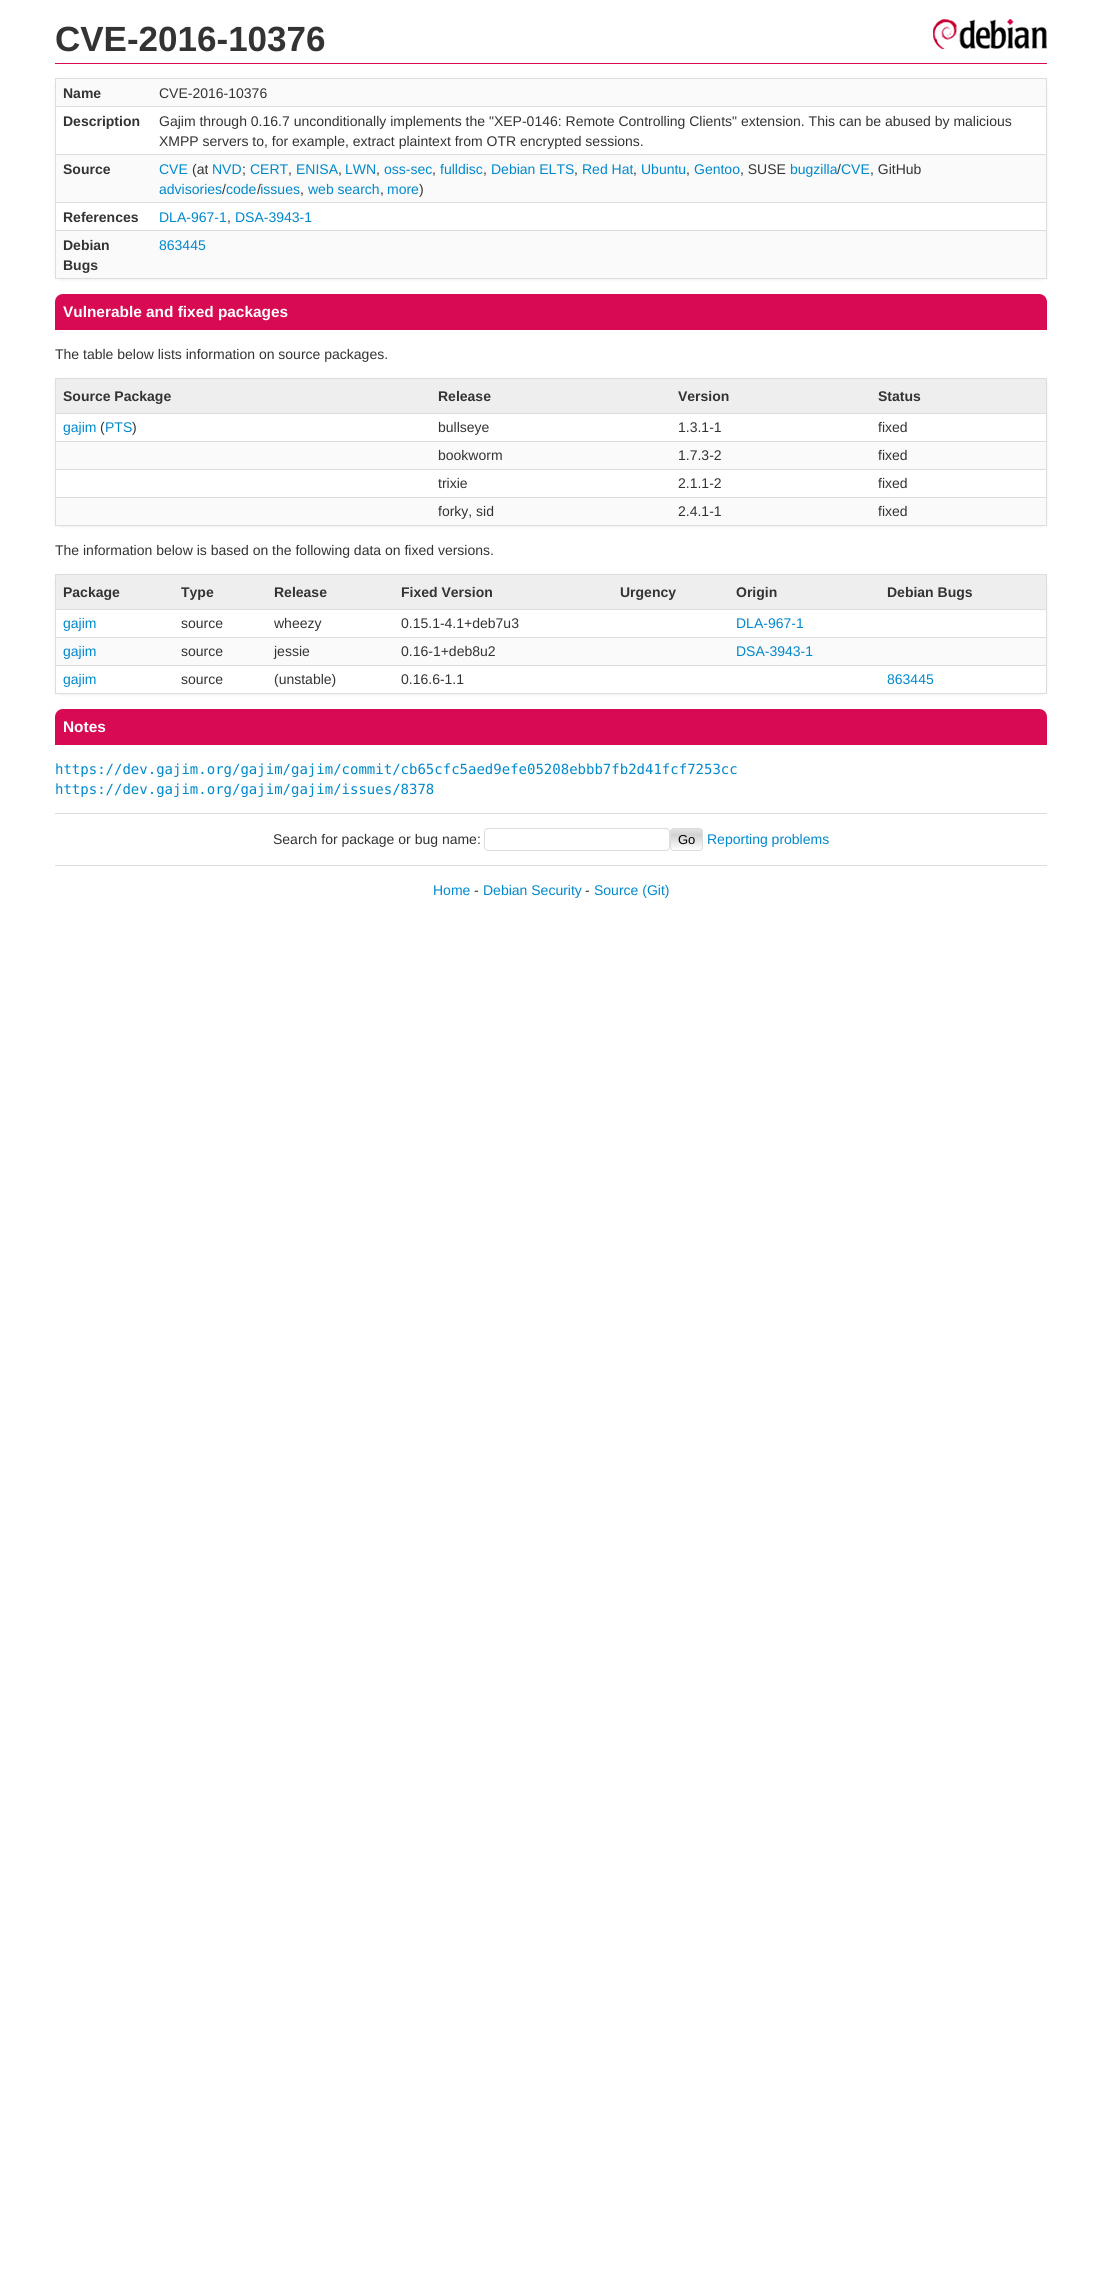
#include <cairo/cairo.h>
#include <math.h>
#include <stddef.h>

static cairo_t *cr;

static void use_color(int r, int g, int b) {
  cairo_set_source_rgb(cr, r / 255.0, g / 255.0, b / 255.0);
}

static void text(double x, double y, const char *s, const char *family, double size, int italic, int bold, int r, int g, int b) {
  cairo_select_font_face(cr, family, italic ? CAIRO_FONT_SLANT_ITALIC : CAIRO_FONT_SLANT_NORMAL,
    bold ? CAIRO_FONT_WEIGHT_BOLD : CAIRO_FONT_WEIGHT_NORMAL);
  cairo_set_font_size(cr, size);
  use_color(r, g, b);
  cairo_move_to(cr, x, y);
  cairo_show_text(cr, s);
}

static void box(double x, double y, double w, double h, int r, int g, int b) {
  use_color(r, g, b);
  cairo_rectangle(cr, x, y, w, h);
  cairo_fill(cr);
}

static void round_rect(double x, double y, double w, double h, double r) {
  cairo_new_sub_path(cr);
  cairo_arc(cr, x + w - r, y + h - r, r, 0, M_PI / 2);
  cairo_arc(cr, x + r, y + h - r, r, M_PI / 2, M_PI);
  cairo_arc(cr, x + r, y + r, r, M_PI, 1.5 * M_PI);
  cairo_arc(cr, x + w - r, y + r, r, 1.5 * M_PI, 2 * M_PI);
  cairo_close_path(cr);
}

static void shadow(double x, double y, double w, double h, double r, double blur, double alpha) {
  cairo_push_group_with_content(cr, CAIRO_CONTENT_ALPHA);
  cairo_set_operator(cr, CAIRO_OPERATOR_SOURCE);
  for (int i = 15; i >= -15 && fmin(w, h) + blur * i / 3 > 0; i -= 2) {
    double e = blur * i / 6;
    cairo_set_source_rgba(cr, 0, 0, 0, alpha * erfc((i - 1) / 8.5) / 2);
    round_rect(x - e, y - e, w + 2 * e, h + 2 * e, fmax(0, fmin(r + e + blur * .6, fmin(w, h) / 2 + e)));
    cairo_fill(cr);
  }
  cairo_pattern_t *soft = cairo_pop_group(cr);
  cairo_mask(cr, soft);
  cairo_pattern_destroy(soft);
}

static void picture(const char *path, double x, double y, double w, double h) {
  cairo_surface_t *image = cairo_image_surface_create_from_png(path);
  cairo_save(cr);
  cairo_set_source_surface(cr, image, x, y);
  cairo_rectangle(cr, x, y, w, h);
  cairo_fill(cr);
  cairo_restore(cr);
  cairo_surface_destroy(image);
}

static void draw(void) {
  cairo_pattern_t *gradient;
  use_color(255, 255, 255);
  cairo_paint(cr);
  picture("img_01.png", 933, 19, 114, 30);
  box(55, 63, 992, 1, 215, 10, 83);
  cairo_save(cr);
  cairo_set_fill_rule(cr, CAIRO_FILL_RULE_EVEN_ODD);
  cairo_new_path(cr);
  cairo_move_to(cr, 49, 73);
  cairo_line_to(cr, 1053, 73);
  cairo_line_to(cr, 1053, 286);
  cairo_line_to(cr, 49, 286);
  cairo_close_path(cr);
  cairo_move_to(cr, 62, 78);
  cairo_line_to(cr, 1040, 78);
  cairo_curve_to(cr, 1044, 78, 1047, 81, 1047, 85);
  cairo_line_to(cr, 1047, 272);
  cairo_curve_to(cr, 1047, 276, 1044, 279, 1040, 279);
  cairo_line_to(cr, 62, 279);
  cairo_curve_to(cr, 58, 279, 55, 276, 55, 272);
  cairo_line_to(cr, 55, 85);
  cairo_curve_to(cr, 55, 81, 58, 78, 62, 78);
  cairo_close_path(cr);
  cairo_clip(cr);
  use_color(238, 238, 238);
  shadow(55, 79, 992, 201, 7, 1.5, 1);
  cairo_restore(cr);
  box(55, 78, 992, 1, 221, 221, 221);
  box(1046, 78, 1, 201, 221, 221, 221);
  box(55, 278, 992, 1, 221, 221, 221);
  box(55, 78, 1, 201, 221, 221, 221);
  box(56, 79, 990, 27, 250, 250, 250);
  box(55, 106, 992, 1, 221, 221, 221);
  box(55, 154, 992, 1, 221, 221, 221);
  box(56, 155, 990, 47, 250, 250, 250);
  box(55, 202, 992, 1, 221, 221, 221);
  box(55, 230, 992, 1, 221, 221, 221);
  box(56, 231, 990, 47, 250, 250, 250);
  use_color(215, 10, 83);
  cairo_new_path(cr);
  cairo_move_to(cr, 63, 294);
  cairo_line_to(cr, 1039, 294);
  cairo_curve_to(cr, 1043.5, 294, 1047, 297.5, 1047, 302);
  cairo_line_to(cr, 1047, 330);
  cairo_line_to(cr, 55, 330);
  cairo_line_to(cr, 55, 302);
  cairo_curve_to(cr, 55, 297.5, 58.5, 294, 63, 294);
  cairo_close_path(cr);
  cairo_fill(cr);
  cairo_save(cr);
  cairo_set_fill_rule(cr, CAIRO_FILL_RULE_EVEN_ODD);
  cairo_new_path(cr);
  cairo_move_to(cr, 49, 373);
  cairo_line_to(cr, 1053, 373);
  cairo_line_to(cr, 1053, 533);
  cairo_line_to(cr, 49, 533);
  cairo_close_path(cr);
  cairo_move_to(cr, 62, 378);
  cairo_line_to(cr, 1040, 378);
  cairo_curve_to(cr, 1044, 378, 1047, 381, 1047, 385);
  cairo_line_to(cr, 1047, 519);
  cairo_curve_to(cr, 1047, 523, 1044, 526, 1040, 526);
  cairo_line_to(cr, 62, 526);
  cairo_curve_to(cr, 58, 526, 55, 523, 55, 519);
  cairo_line_to(cr, 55, 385);
  cairo_curve_to(cr, 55, 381, 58, 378, 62, 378);
  cairo_close_path(cr);
  cairo_clip(cr);
  use_color(238, 238, 238);
  shadow(55, 379, 992, 148, 7, 1.5, 1);
  cairo_restore(cr);
  box(55, 378, 992, 1, 221, 221, 221);
  box(1046, 378, 1, 148, 221, 221, 221);
  box(55, 525, 992, 1, 221, 221, 221);
  box(55, 378, 1, 148, 221, 221, 221);
  box(56, 379, 990, 34, 238, 238, 238);
  box(55, 413, 992, 1, 221, 221, 221);
  box(55, 441, 992, 1, 221, 221, 221);
  box(56, 442, 990, 27, 250, 250, 250);
  box(55, 469, 992, 1, 221, 221, 221);
  box(55, 497, 992, 1, 221, 221, 221);
  box(56, 498, 990, 27, 250, 250, 250);
  cairo_save(cr);
  cairo_set_fill_rule(cr, CAIRO_FILL_RULE_EVEN_ODD);
  cairo_new_path(cr);
  cairo_move_to(cr, 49, 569);
  cairo_line_to(cr, 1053, 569);
  cairo_line_to(cr, 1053, 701);
  cairo_line_to(cr, 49, 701);
  cairo_close_path(cr);
  cairo_move_to(cr, 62, 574);
  cairo_line_to(cr, 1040, 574);
  cairo_curve_to(cr, 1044, 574, 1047, 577, 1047, 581);
  cairo_line_to(cr, 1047, 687);
  cairo_curve_to(cr, 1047, 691, 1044, 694, 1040, 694);
  cairo_line_to(cr, 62, 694);
  cairo_curve_to(cr, 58, 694, 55, 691, 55, 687);
  cairo_line_to(cr, 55, 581);
  cairo_curve_to(cr, 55, 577, 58, 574, 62, 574);
  cairo_close_path(cr);
  cairo_clip(cr);
  use_color(238, 238, 238);
  shadow(55, 575, 992, 120, 7, 1.5, 1);
  cairo_restore(cr);
  box(55, 574, 992, 1, 221, 221, 221);
  box(1046, 574, 1, 120, 221, 221, 221);
  box(55, 693, 992, 1, 221, 221, 221);
  box(55, 574, 1, 120, 221, 221, 221);
  box(56, 575, 990, 34, 238, 238, 238);
  box(55, 609, 992, 1, 221, 221, 221);
  box(55, 637, 992, 1, 221, 221, 221);
  box(56, 638, 990, 27, 250, 250, 250);
  box(55, 665, 992, 1, 221, 221, 221);
  use_color(215, 10, 83);
  cairo_new_path(cr);
  cairo_move_to(cr, 63, 709);
  cairo_line_to(cr, 1039, 709);
  cairo_curve_to(cr, 1043.5, 709, 1047, 712.5, 1047, 717);
  cairo_line_to(cr, 1047, 745);
  cairo_line_to(cr, 55, 745);
  cairo_line_to(cr, 55, 717);
  cairo_curve_to(cr, 55, 712.5, 58.5, 709, 63, 709);
  cairo_close_path(cr);
  cairo_fill(cr);
  box(55, 813, 992, 1, 221, 221, 221);
  box(55, 865, 992, 1, 221, 221, 221);
  round_rect(484.5, 828.5, 185, 22, 3.5);
  cairo_set_line_width(cr, 1);
  cairo_stroke(cr);
  cairo_save(cr);
  round_rect(670, 828, 33, 23, 4);
  cairo_clip(cr);
  gradient = cairo_pattern_create_linear(687, 829, 687, 850);
  cairo_pattern_add_color_stop_rgba(gradient, 0, 0.886, 0.886, 0.886, 1);
  cairo_pattern_add_color_stop_rgba(gradient, 0.15, 0.859, 0.859, 0.859, 1);
  cairo_pattern_add_color_stop_rgba(gradient, 0.28, 0.82, 0.82, 0.82, 1);
  cairo_pattern_add_color_stop_rgba(gradient, 1, 0.996, 0.996, 0.996, 1);
  cairo_set_source(cr, gradient);
  cairo_pattern_destroy(gradient);
  cairo_rectangle(cr, 670, 829, 33, 21);
  cairo_fill(cr);
  cairo_restore(cr);
  round_rect(670.5, 828.5, 32, 22, 3.5);
  cairo_stroke(cr);
  text(55, 51, "CVE-2016-10376", "Liberation Sans", 35, 0, 1, 51, 51, 51);
  text(63, 98, "Name", "Liberation Sans", 14, 0, 1, 51, 51, 51);
  text(159, 98, "CVE-2016-10376", "Liberation Sans", 14, 0, 0, 51, 51, 51);
  text(63, 126, "Description", "Liberation Sans", 14, 0, 1, 51, 51, 51);
  text(159, 126, "Gajim through 0.16.7 unconditionally implements the \"XEP-0146: Remote Controlling Clients\" extension. This can be abused by malicious", "Liberation Sans", 14, 0, 0, 51, 51, 51);
  text(159, 146, "XMPP servers to, for example, extract plaintext from OTR encrypted sessions.", "Liberation Sans", 14, 0, 0, 51, 51, 51);
  text(63, 174, "Source", "Liberation Sans", 14, 0, 1, 51, 51, 51);
  text(159, 174, "CVE", "Liberation Sans", 14, 0, 0, 0, 136, 204);
  text(192, 174, "(at", "Liberation Sans", 14, 0, 0, 51, 51, 51);
  text(212, 174, "NVD", "Liberation Sans", 14, 0, 0, 0, 136, 204);
  text(242, 174, ";", "Liberation Sans", 14, 0, 0, 51, 51, 51);
  text(250, 174, "CERT", "Liberation Sans", 14, 0, 0, 0, 136, 204);
  text(288, 174, ",", "Liberation Sans", 14, 0, 0, 51, 51, 51);
  text(296, 174, "ENISA", "Liberation Sans", 14, 0, 0, 0, 136, 204);
  text(338, 174, ",", "Liberation Sans", 14, 0, 0, 51, 51, 51);
  text(345, 174, "LWN", "Liberation Sans", 14, 0, 0, 0, 136, 204);
  text(376, 174, ",", "Liberation Sans", 14, 0, 0, 51, 51, 51);
  text(384, 174, "oss-sec", "Liberation Sans", 14, 0, 0, 0, 136, 204);
  text(432, 174, ",", "Liberation Sans", 14, 0, 0, 51, 51, 51);
  text(440, 174, "fulldisc", "Liberation Sans", 14, 0, 0, 0, 136, 204);
  text(483, 174, ",", "Liberation Sans", 14, 0, 0, 51, 51, 51);
  text(491, 174, "Debian ELTS", "Liberation Sans", 14, 0, 0, 0, 136, 204);
  text(574, 174, ",", "Liberation Sans", 14, 0, 0, 51, 51, 51);
  text(582, 174, "Red Hat", "Liberation Sans", 14, 0, 0, 0, 136, 204);
  text(633, 174, ",", "Liberation Sans", 14, 0, 0, 51, 51, 51);
  text(641, 174, "Ubuntu", "Liberation Sans", 14, 0, 0, 0, 136, 204);
  text(686, 174, ",", "Liberation Sans", 14, 0, 0, 51, 51, 51);
  text(694, 174, "Gentoo", "Liberation Sans", 14, 0, 0, 0, 136, 204);
  text(740, 174, ", SUSE", "Liberation Sans", 14, 0, 0, 51, 51, 51);
  text(790, 174, "bugzilla", "Liberation Sans", 14, 0, 0, 0, 136, 204);
  text(837, 174, "/", "Liberation Sans", 14, 0, 0, 51, 51, 51);
  text(841, 174, "CVE", "Liberation Sans", 14, 0, 0, 0, 136, 204);
  text(870, 174, ", GitHub", "Liberation Sans", 14, 0, 0, 51, 51, 51);
  text(159, 194, "advisories", "Liberation Sans", 14, 0, 0, 0, 136, 204);
  text(222, 194, "/", "Liberation Sans", 14, 0, 0, 51, 51, 51);
  text(226, 194, "code issues", "Liberation Sans", 14, 0, 0, 0, 136, 204);
  text(257, 194, "/", "Liberation Sans", 14, 0, 0, 51, 51, 51);
  text(300, 194, ",", "Liberation Sans", 14, 0, 0, 51, 51, 51);
  text(308, 194, "web search", "Liberation Sans", 14, 0, 0, 0, 136, 204);
  text(380, 194, ",", "Liberation Sans", 14, 0, 0, 51, 51, 51);
  text(387, 194, "more", "Liberation Sans", 14, 0, 0, 0, 136, 204);
  text(419, 194, ")", "Liberation Sans", 14, 0, 0, 51, 51, 51);
  text(63, 222, "References", "Liberation Sans", 14, 0, 1, 51, 51, 51);
  text(159, 222, "DLA-967-1", "Liberation Sans", 14, 0, 0, 0, 136, 204);
  text(227, 222, ",", "Liberation Sans", 14, 0, 0, 51, 51, 51);
  text(235, 222, "DSA-3943-1", "Liberation Sans", 14, 0, 0, 0, 136, 204);
  text(63, 250, "Debian", "Liberation Sans", 14, 0, 1, 51, 51, 51);
  text(63, 270, "Bugs", "Liberation Sans", 14, 0, 1, 51, 51, 51);
  text(159, 250, "863445", "Liberation Sans", 14, 0, 0, 0, 136, 204);
  text(63, 317, "Vulnerable and fixed packages", "Liberation Sans", 15.4, 0, 1, 255, 255, 255);
  text(55, 359, "The table below lists information on source packages.", "Liberation Sans", 14, 0, 0, 51, 51, 51);
  text(63, 401, "Source Package", "Liberation Sans", 14, 0, 1, 51, 51, 51);
  text(438, 401, "Release", "Liberation Sans", 14, 0, 1, 51, 51, 51);
  text(678, 401, "Version", "Liberation Sans", 14, 0, 1, 51, 51, 51);
  text(878, 401, "Status", "Liberation Sans", 14, 0, 1, 51, 51, 51);
  text(63, 432, "gajim", "Liberation Sans", 14, 0, 0, 0, 136, 204);
  text(100, 432, "(", "Liberation Sans", 14, 0, 0, 51, 51, 51);
  text(105, 432, "PTS", "Liberation Sans", 14, 0, 0, 0, 136, 204);
  text(132, 432, ")", "Liberation Sans", 14, 0, 0, 51, 51, 51);
  text(438, 432, "bullseye", "Liberation Sans", 14, 0, 0, 51, 51, 51);
  text(678, 432, "1.3.1-1", "Liberation Sans", 14, 0, 0, 51, 51, 51);
  text(878, 432, "fixed", "Liberation Sans", 14, 0, 0, 51, 51, 51);
  text(438, 460, "bookworm", "Liberation Sans", 14, 0, 0, 51, 51, 51);
  text(678, 460, "1.7.3-2", "Liberation Sans", 14, 0, 0, 51, 51, 51);
  text(878, 460, "fixed", "Liberation Sans", 14, 0, 0, 51, 51, 51);
  text(438, 488, "trixie", "Liberation Sans", 14, 0, 0, 51, 51, 51);
  text(678, 488, "2.1.1-2", "Liberation Sans", 14, 0, 0, 51, 51, 51);
  text(878, 488, "fixed", "Liberation Sans", 14, 0, 0, 51, 51, 51);
  text(438, 516, "forky, sid", "Liberation Sans", 14, 0, 0, 51, 51, 51);
  text(678, 516, "2.4.1-1", "Liberation Sans", 14, 0, 0, 51, 51, 51);
  text(878, 516, "fixed", "Liberation Sans", 14, 0, 0, 51, 51, 51);
  text(55, 555, "The information below is based on the following data on fixed versions.", "Liberation Sans", 14, 0, 0, 51, 51, 51);
  text(63, 597, "Package", "Liberation Sans", 14, 0, 1, 51, 51, 51);
  text(181, 597, "Type", "Liberation Sans", 14, 0, 1, 51, 51, 51);
  text(274, 597, "Release", "Liberation Sans", 14, 0, 1, 51, 51, 51);
  text(401, 597, "Fixed Version", "Liberation Sans", 14, 0, 1, 51, 51, 51);
  text(620, 597, "Urgency", "Liberation Sans", 14, 0, 1, 51, 51, 51);
  text(736, 597, "Origin", "Liberation Sans", 14, 0, 1, 51, 51, 51);
  text(887, 597, "Debian Bugs", "Liberation Sans", 14, 0, 1, 51, 51, 51);
  text(63, 628, "gajim", "Liberation Sans", 14, 0, 0, 0, 136, 204);
  text(181, 628, "source", "Liberation Sans", 14, 0, 0, 51, 51, 51);
  text(274, 628, "wheezy", "Liberation Sans", 14, 0, 0, 51, 51, 51);
  text(401, 628, "0.15.1-4.1+deb7u3", "Liberation Sans", 14, 0, 0, 51, 51, 51);
  text(736, 628, "DLA-967-1", "Liberation Sans", 14, 0, 0, 0, 136, 204);
  text(63, 656, "gajim", "Liberation Sans", 14, 0, 0, 0, 136, 204);
  text(181, 656, "source", "Liberation Sans", 14, 0, 0, 51, 51, 51);
  text(274, 656, "jessie", "Liberation Sans", 14, 0, 0, 51, 51, 51);
  text(401, 656, "0.16-1+deb8u2", "Liberation Sans", 14, 0, 0, 51, 51, 51);
  text(736, 656, "DSA-3943-1", "Liberation Sans", 14, 0, 0, 0, 136, 204);
  text(63, 684, "gajim", "Liberation Sans", 14, 0, 0, 0, 136, 204);
  text(181, 684, "source", "Liberation Sans", 14, 0, 0, 51, 51, 51);
  text(274, 684, "(unstable)", "Liberation Sans", 14, 0, 0, 51, 51, 51);
  text(401, 684, "0.16.6-1.1", "Liberation Sans", 14, 0, 0, 51, 51, 51);
  text(887, 684, "863445", "Liberation Sans", 14, 0, 0, 0, 136, 204);
  text(63, 732, "Notes", "Liberation Sans", 15.4, 0, 1, 255, 255, 255);
  text(55, 774, "https://dev.gajim.org/gajim/gajim/commit/cb65cfc5aed9efe05208ebbb7fb2d41fcf7253cc", "DejaVu Sans Mono", 14, 0, 0, 0, 136, 204);
  text(55, 794, "https://dev.gajim.org/gajim/gajim/issues/8378", "DejaVu Sans Mono", 14, 0, 0, 0, 136, 204);
  text(273, 844, "Search for package or bug name:", "Liberation Sans", 14, 0, 0, 51, 51, 51);
  text(678, 844, "Go", "Liberation Sans", 13, 0, 0, 0, 0, 0);
  text(707, 844, "Reporting problems", "Liberation Sans", 14, 0, 0, 0, 136, 204);
  text(433, 895, "Home", "Liberation Sans", 14, 0, 0, 0, 136, 204);
  text(474, 895, "-", "Liberation Sans", 14, 0, 0, 51, 51, 51);
  text(483, 895, "Debian Security", "Liberation Sans", 14, 0, 0, 0, 136, 204);
  text(585, 895, "-", "Liberation Sans", 14, 0, 0, 51, 51, 51);
  text(594, 895, "Source (Git)", "Liberation Sans", 14, 0, 0, 0, 136, 204);
}

int main(void) {
  cairo_surface_t *surface = cairo_image_surface_create(CAIRO_FORMAT_RGB24, 1102, 2269);
  cr = cairo_create(surface);
  cairo_font_options_t *options = cairo_font_options_create();
  cairo_font_options_set_hint_metrics(options, CAIRO_HINT_METRICS_OFF);
  cairo_font_options_set_hint_style(options, CAIRO_HINT_STYLE_NONE);
  cairo_set_font_options(cr, options);
  cairo_set_miter_limit(cr, 4);
  draw();
  cairo_surface_write_to_png(surface, "out.png");
  cairo_font_options_destroy(options);
  cairo_destroy(cr);
  cairo_surface_destroy(surface);
  return 0;
}
